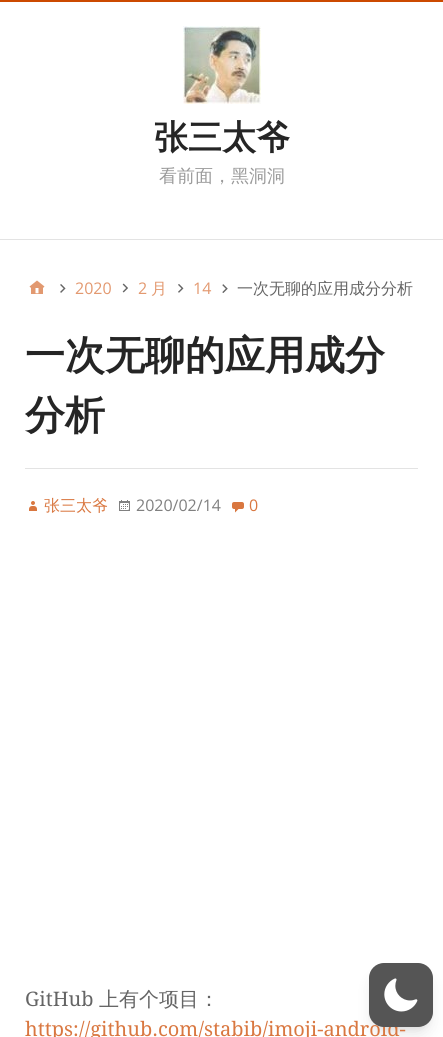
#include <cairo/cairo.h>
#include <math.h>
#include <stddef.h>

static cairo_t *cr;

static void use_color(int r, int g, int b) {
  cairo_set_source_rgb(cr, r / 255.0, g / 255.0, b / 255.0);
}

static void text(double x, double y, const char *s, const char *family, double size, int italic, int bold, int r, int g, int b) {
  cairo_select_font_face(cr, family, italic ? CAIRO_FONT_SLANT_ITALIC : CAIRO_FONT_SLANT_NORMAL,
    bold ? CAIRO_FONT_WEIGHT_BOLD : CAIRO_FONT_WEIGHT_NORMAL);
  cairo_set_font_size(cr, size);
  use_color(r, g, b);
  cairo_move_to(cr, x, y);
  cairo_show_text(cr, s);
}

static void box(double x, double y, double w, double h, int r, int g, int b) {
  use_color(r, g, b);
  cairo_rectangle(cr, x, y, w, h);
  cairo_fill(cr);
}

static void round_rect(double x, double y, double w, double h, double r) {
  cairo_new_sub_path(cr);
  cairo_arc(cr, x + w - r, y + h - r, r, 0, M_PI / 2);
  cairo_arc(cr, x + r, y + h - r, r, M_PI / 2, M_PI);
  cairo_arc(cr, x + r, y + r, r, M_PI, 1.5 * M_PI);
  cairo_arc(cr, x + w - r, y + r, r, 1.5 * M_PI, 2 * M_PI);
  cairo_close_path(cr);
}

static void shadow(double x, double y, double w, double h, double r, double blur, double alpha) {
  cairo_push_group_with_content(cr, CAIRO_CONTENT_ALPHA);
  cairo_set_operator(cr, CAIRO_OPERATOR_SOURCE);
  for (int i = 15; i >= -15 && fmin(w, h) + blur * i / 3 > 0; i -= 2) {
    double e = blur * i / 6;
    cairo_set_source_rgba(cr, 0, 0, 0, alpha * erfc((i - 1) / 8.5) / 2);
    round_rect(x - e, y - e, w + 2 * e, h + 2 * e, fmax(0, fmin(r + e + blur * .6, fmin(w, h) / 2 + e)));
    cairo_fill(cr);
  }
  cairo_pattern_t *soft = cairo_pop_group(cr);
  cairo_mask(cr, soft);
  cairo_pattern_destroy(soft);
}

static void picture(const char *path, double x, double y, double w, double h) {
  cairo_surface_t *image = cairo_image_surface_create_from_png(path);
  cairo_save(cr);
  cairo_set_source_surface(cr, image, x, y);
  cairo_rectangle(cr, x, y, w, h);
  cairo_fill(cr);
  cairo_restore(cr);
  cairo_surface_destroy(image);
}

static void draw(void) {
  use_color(204, 74, 0);
  cairo_paint(cr);
  box(0, 2, 443, 1035, 255, 255, 255);
  box(0, 239, 443, 1, 227, 227, 227);
  picture("img_01.png", 183, 26, 78, 78);
  picture("img_02.png", 29, 280, 16, 14);
  picture("img_03.png", 60, 284, 6, 9);
  picture("img_04.png", 122, 283, 6, 10);
  picture("img_05.png", 178, 284, 6, 9);
  picture("img_06.png", 222, 284, 6, 9);
  box(25, 468, 393, 1, 227, 227, 227);
  picture("img_07.png", 29, 501, 8, 10);
  picture("img_08.png", 119, 500, 11, 11);
  picture("img_09.png", 232, 502, 12, 11);
  use_color(0, 0, 0);
  shadow(373, 971, 56, 56, 11, 3, 0.1);
  shadow(372, 976, 58, 58, 12, 7.5, 0.1);
  text(154, 149, "张三太爷", "WenQuanYi Zen Hei", 34, 0, 1, 37, 37, 37);
  text(159, 182, "看前面，黑洞洞", "WenQuanYi Zen Hei Medium", 18, 0, 0, 154, 154, 154);
  text(75, 294, "2020", "Open Sans", 16, 0, 0, 227, 153, 112);
  text(138, 294, "2", "Open Sans", 16, 0, 0, 227, 153, 112);
  text(151, 294, "月", "WenQuanYi Zen Hei Medium", 16, 0, 0, 227, 153, 112);
  text(193, 294, "14", "Open Sans", 16, 0, 0, 227, 153, 112);
  text(237, 294, "一次无聊的应用成分分析", "WenQuanYi Zen Hei Medium", 16, 0, 0, 101, 101, 101);
  text(25, 369, "一次无聊的应用成分", "WenQuanYi Zen Hei", 40, 0, 1, 37, 37, 37);
  text(25, 429, "分析", "WenQuanYi Zen Hei", 40, 0, 1, 37, 37, 37);
  text(44, 511, "张三太爷", "WenQuanYi Zen Hei Medium", 16, 0, 0, 217, 119, 64);
  text(136, 511, "2020/02/14", "Open Sans", 16, 0, 0, 128, 128, 128);
  text(249, 511, "0", "Open Sans", 16, 0, 0, 217, 119, 64);
  text(25, 1006, "GitHub", "Droid Serif", 20, 0, 0, 101, 101, 101);
  text(99, 1006, "上有个项目：", "WenQuanYi Zen Hei Medium", 20, 0, 0, 101, 101, 101);
  text(25, 1036, "https://github.com/stabib/imoji-android-", "Droid Serif", 20, 0, 0, 217, 119, 64);
  use_color(85, 85, 85);
  round_rect(369, 963, 64, 64, 15);
  cairo_fill(cr);
  picture("img_10.png", 384, 978, 34, 34);
}

int main(void) {
  cairo_surface_t *surface = cairo_image_surface_create(CAIRO_FORMAT_RGB24, 443, 1037);
  cr = cairo_create(surface);
  cairo_font_options_t *options = cairo_font_options_create();
  cairo_font_options_set_hint_metrics(options, CAIRO_HINT_METRICS_OFF);
  cairo_font_options_set_hint_style(options, CAIRO_HINT_STYLE_NONE);
  cairo_set_font_options(cr, options);
  cairo_set_miter_limit(cr, 4);
  draw();
  cairo_surface_write_to_png(surface, "out.png");
  cairo_font_options_destroy(options);
  cairo_destroy(cr);
  cairo_surface_destroy(surface);
  return 0;
}
